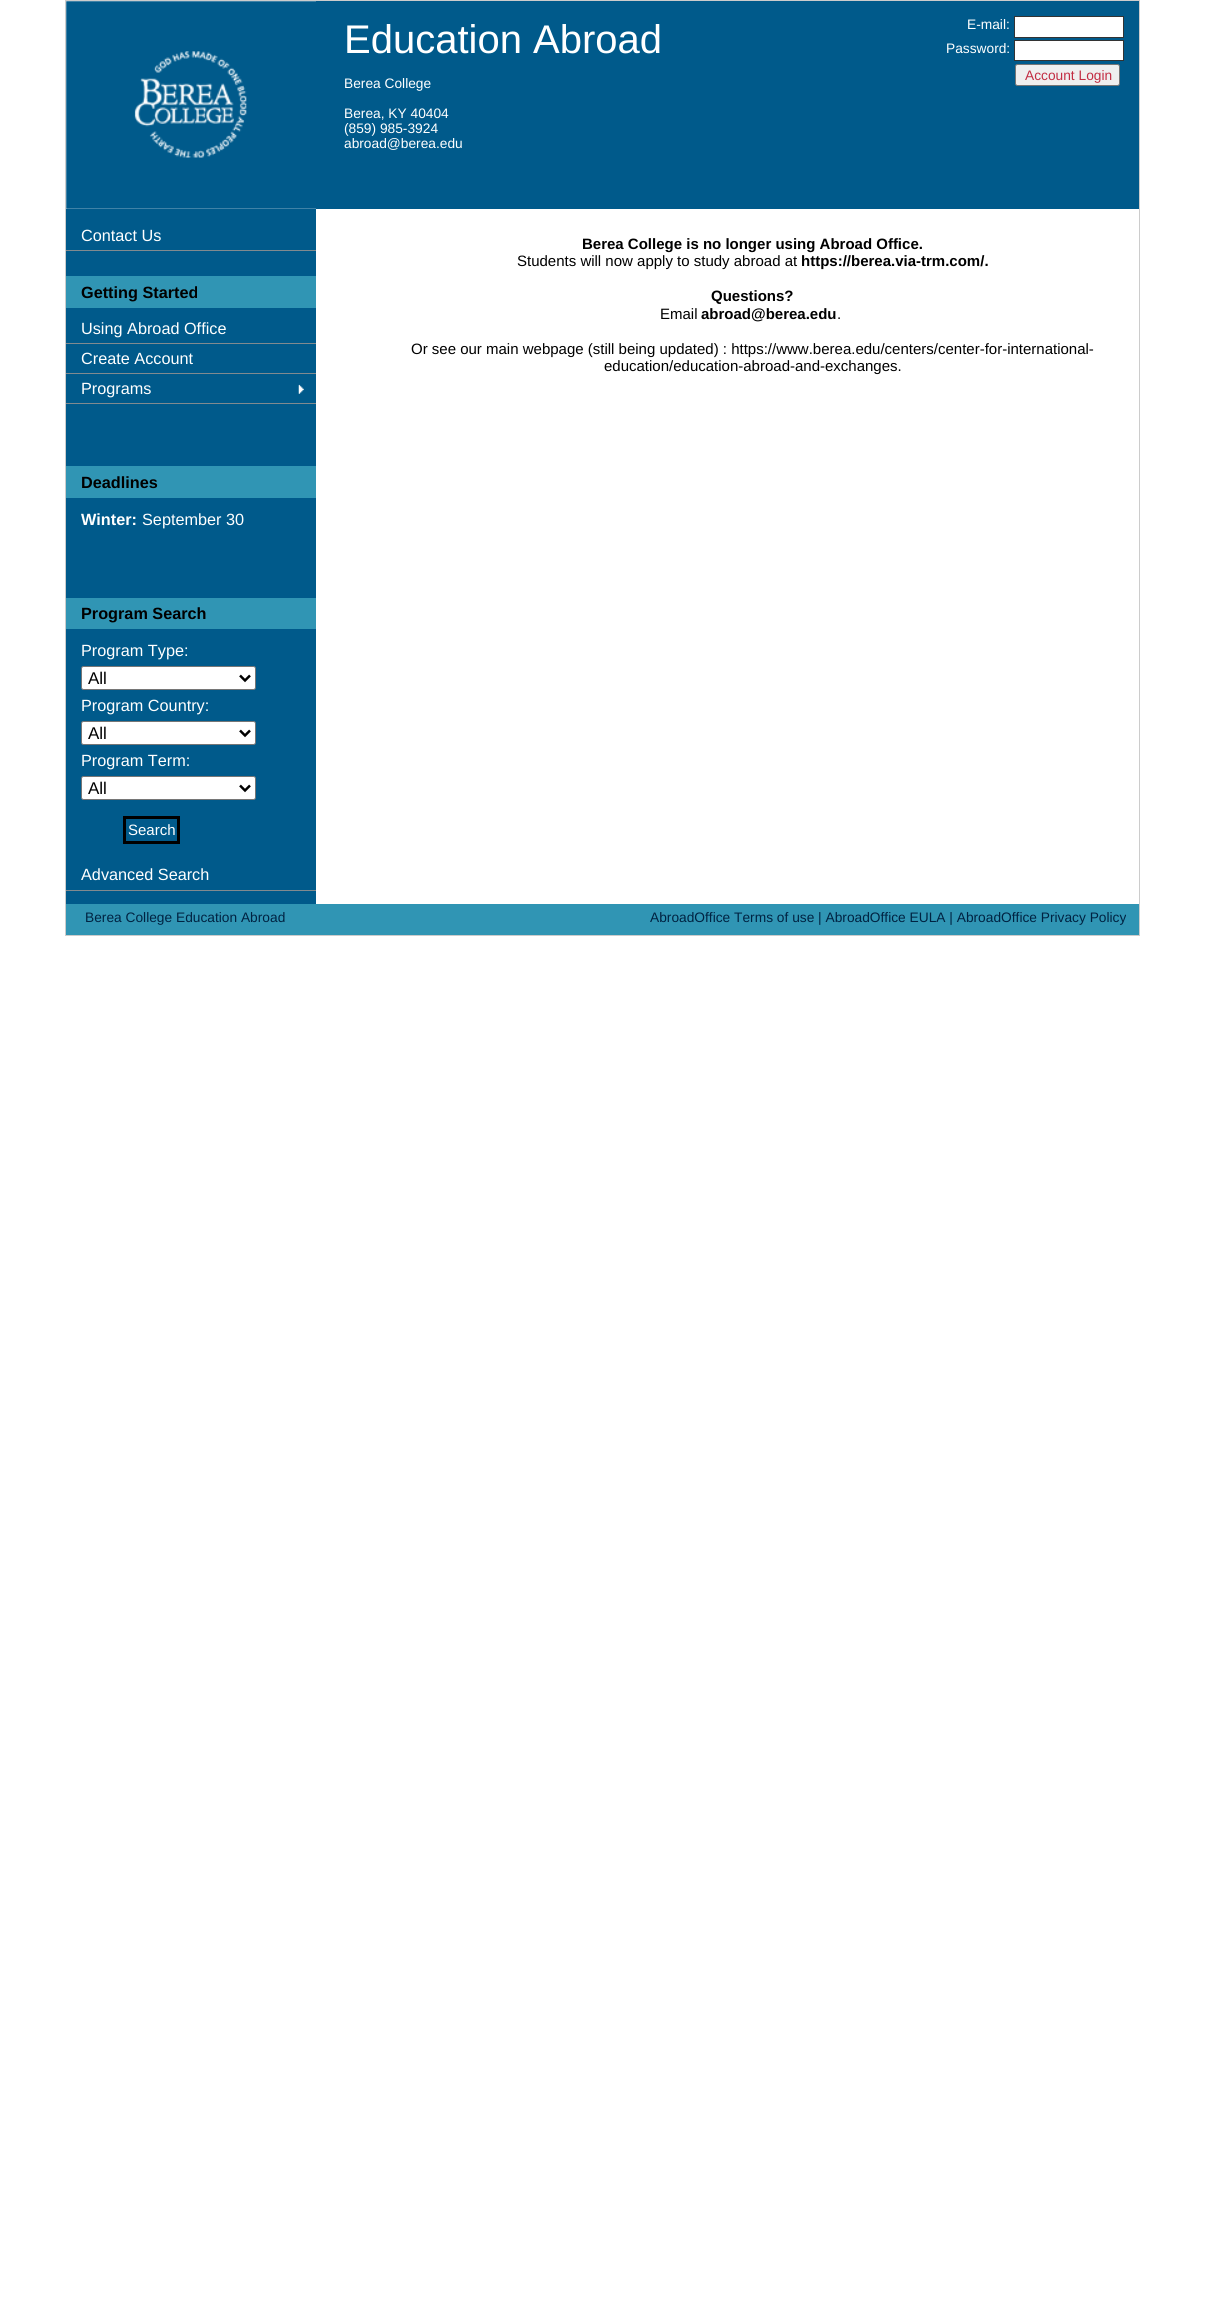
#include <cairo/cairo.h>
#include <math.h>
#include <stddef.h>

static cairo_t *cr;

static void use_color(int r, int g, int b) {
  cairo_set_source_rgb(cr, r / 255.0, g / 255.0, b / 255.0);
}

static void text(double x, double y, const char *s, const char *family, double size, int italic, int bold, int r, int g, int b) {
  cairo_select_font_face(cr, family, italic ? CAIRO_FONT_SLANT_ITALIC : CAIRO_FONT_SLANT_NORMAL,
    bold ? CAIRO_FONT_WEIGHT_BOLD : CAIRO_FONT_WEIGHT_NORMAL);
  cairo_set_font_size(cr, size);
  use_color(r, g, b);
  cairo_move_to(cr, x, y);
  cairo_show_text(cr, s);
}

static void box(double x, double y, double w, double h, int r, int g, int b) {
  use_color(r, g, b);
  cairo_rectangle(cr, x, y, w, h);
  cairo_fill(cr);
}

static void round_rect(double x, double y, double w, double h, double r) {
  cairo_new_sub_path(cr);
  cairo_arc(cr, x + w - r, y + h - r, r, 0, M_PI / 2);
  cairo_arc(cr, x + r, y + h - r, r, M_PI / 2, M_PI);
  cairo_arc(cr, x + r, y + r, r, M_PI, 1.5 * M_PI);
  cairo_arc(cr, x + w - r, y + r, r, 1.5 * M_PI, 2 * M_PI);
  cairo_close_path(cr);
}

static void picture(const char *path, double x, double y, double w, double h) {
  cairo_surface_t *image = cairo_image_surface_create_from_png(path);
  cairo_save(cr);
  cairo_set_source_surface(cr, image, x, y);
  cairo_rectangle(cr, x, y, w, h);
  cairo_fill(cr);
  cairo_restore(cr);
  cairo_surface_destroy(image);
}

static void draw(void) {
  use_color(255, 255, 255);
  cairo_paint(cr);
  cairo_rectangle(cr, 65.5, 0.5, 1074, 935);
  use_color(204, 204, 204);
  cairo_set_line_width(cr, 1);
  cairo_stroke(cr);
  picture("img_01.png", 66, 1, 250, 208);
  box(316, 1, 823, 208, 0, 90, 139);
  use_color(255, 255, 255);
  cairo_rectangle(cr, 1014.5, 16.5, 109, 21);
  cairo_fill_preserve(cr);
  use_color(51, 51, 51);
  cairo_stroke(cr);
  use_color(255, 255, 255);
  cairo_rectangle(cr, 1014.5, 40.5, 109, 20);
  cairo_fill_preserve(cr);
  use_color(51, 51, 51);
  cairo_stroke(cr);
  use_color(239, 239, 239);
  round_rect(1015.5, 64.5, 104, 21, 2);
  cairo_fill_preserve(cr);
  use_color(118, 118, 118);
  cairo_stroke(cr);
  box(66, 209, 250, 695, 0, 90, 139);
  box(66, 250, 250, 1, 129, 138, 143);
  box(66, 276, 250, 32, 48, 149, 180);
  box(66, 343, 250, 1, 129, 138, 143);
  box(66, 373, 250, 1, 129, 138, 143);
  picture("img_02.png", 298, 384, 6, 10);
  box(66, 403, 250, 1, 129, 138, 143);
  box(66, 466, 250, 32, 48, 149, 180);
  box(66, 598, 250, 31, 48, 149, 180);
  use_color(255, 255, 255);
  round_rect(81.5, 666.5, 174, 23, 2);
  cairo_fill_preserve(cr);
  use_color(118, 118, 118);
  cairo_stroke(cr);
  cairo_new_path(cr);
  cairo_move_to(cr, 240, 675.5);
  cairo_line_to(cr, 245, 680.5);
  cairo_line_to(cr, 250, 675.5);
  use_color(0, 0, 0);
  cairo_set_line_width(cr, 2.5);
  cairo_stroke(cr);
  use_color(255, 255, 255);
  round_rect(81.5, 721.5, 174, 23, 2);
  cairo_fill_preserve(cr);
  use_color(118, 118, 118);
  cairo_set_line_width(cr, 1);
  cairo_stroke(cr);
  cairo_new_path(cr);
  cairo_move_to(cr, 240, 730.5);
  cairo_line_to(cr, 245, 735.5);
  cairo_line_to(cr, 250, 730.5);
  use_color(0, 0, 0);
  cairo_set_line_width(cr, 2.5);
  cairo_stroke(cr);
  use_color(255, 255, 255);
  round_rect(81.5, 776.5, 174, 23, 2);
  cairo_fill_preserve(cr);
  use_color(118, 118, 118);
  cairo_set_line_width(cr, 1);
  cairo_stroke(cr);
  cairo_new_path(cr);
  cairo_move_to(cr, 240, 785.5);
  cairo_line_to(cr, 245, 790.5);
  cairo_line_to(cr, 250, 785.5);
  use_color(0, 0, 0);
  cairo_set_line_width(cr, 2.5);
  cairo_stroke(cr);
  cairo_rectangle(cr, 124.5, 817.5, 54, 25);
  cairo_set_line_width(cr, 3);
  cairo_stroke(cr);
  box(66, 890, 250, 1, 129, 138, 143);
  box(66, 904, 1073, 31, 48, 149, 180);
  text(344, 53, "Education Abroad", "Liberation Sans", 40, 0, 0, 255, 255, 255);
  text(344, 88, "Berea College", "Liberation Sans", 13.75, 0, 0, 255, 255, 255);
  text(344, 118, "Berea, KY 40404", "Liberation Sans", 13.75, 0, 0, 255, 255, 255);
  text(344, 133, "(859) 985-3924", "Liberation Sans", 13.75, 0, 0, 255, 255, 255);
  text(344, 148, "abroad@berea.edu", "Liberation Sans", 13.75, 0, 0, 255, 255, 255);
  text(967, 29, "E-mail:", "Liberation Sans", 13.75, 0, 0, 255, 255, 255);
  text(946, 53, "Password:", "Liberation Sans", 13.75, 0, 0, 255, 255, 255);
  text(1025, 80, "Account Login", "Liberation Sans", 13.75, 0, 0, 194, 45, 67);
  text(81, 241, "Contact Us", "Liberation Sans", 16.25, 0, 0, 255, 255, 255);
  text(81, 298, "Getting Started", "Liberation Sans", 16.25, 0, 1, 0, 0, 0);
  text(81, 334, "Using Abroad Office", "Liberation Sans", 16.25, 0, 0, 255, 255, 255);
  text(81, 364, "Create Account", "Liberation Sans", 16.25, 0, 0, 255, 255, 255);
  text(81, 394, "Programs", "Liberation Sans", 16.25, 0, 0, 255, 255, 255);
  text(81, 488, "Deadlines", "Liberation Sans", 16.25, 0, 1, 0, 0, 0);
  text(81, 525, "Winter:", "Liberation Sans", 16.25, 0, 1, 255, 255, 255);
  text(142, 525, "September 30", "Liberation Sans", 16.25, 0, 0, 255, 255, 255);
  text(81, 619, "Program Search", "Liberation Sans", 16.25, 0, 1, 0, 0, 0);
  text(81, 656, "Program Type:", "Liberation Sans", 16.25, 0, 0, 255, 255, 255);
  text(88, 684, "All", "Liberation Sans", 17, 0, 0, 0, 0, 0);
  text(81, 711, "Program Country:", "Liberation Sans", 16.25, 0, 0, 255, 255, 255);
  text(88, 739, "All", "Liberation Sans", 17, 0, 0, 0, 0, 0);
  text(81, 766, "Program Term:", "Liberation Sans", 16.25, 0, 0, 255, 255, 255);
  text(88, 794, "All", "Liberation Sans", 17, 0, 0, 0, 0, 0);
  text(128, 835, "Search", "Liberation Sans", 15, 0, 0, 255, 255, 255);
  text(81, 880, "Advanced Search", "Liberation Sans", 16.25, 0, 0, 255, 255, 255);
  text(582, 249, "Berea College is no longer using Abroad Office.", "Liberation Sans", 15, 0, 1, 0, 0, 0);
  text(517, 266, "Students will now apply to study abroad at", "Liberation Sans", 15, 0, 0, 0, 0, 0);
  text(801, 266, "https://berea.via-trm.com/.", "Liberation Sans", 15, 0, 1, 0, 0, 0);
  text(711, 301, "Questions?", "Liberation Sans", 15, 0, 1, 0, 0, 0);
  text(660, 319, "Email", "Liberation Sans", 15, 0, 0, 0, 0, 0);
  text(701, 319, "abroad@berea.edu", "Liberation Sans", 15, 0, 1, 0, 0, 0);
  text(837, 319, ".", "Liberation Sans", 15, 0, 0, 0, 0, 0);
  text(411, 354, "Or see our main webpage (still being updated) : https://www.berea.edu/centers/center-for-international-", "Liberation Sans", 15, 0, 0, 0, 0, 0);
  text(604, 371, "education/education-abroad-and-exchanges.", "Liberation Sans", 15, 0, 0, 0, 0, 0);
  text(85, 922, "Berea College Education Abroad", "Liberation Sans", 13.75, 0, 0, 0, 35, 66);
  text(650, 922, "AbroadOffice Terms of use | AbroadOffice EULA | AbroadOffice Privacy Policy", "Liberation Sans", 13.75, 0, 0, 0, 35, 66);
}

int main(void) {
  cairo_surface_t *surface = cairo_image_surface_create(CAIRO_FORMAT_RGB24, 1205, 2319);
  cr = cairo_create(surface);
  cairo_font_options_t *options = cairo_font_options_create();
  cairo_font_options_set_hint_metrics(options, CAIRO_HINT_METRICS_OFF);
  cairo_font_options_set_hint_style(options, CAIRO_HINT_STYLE_NONE);
  cairo_set_font_options(cr, options);
  cairo_set_miter_limit(cr, 4);
  draw();
  cairo_surface_write_to_png(surface, "out.png");
  cairo_font_options_destroy(options);
  cairo_destroy(cr);
  cairo_surface_destroy(surface);
  return 0;
}
